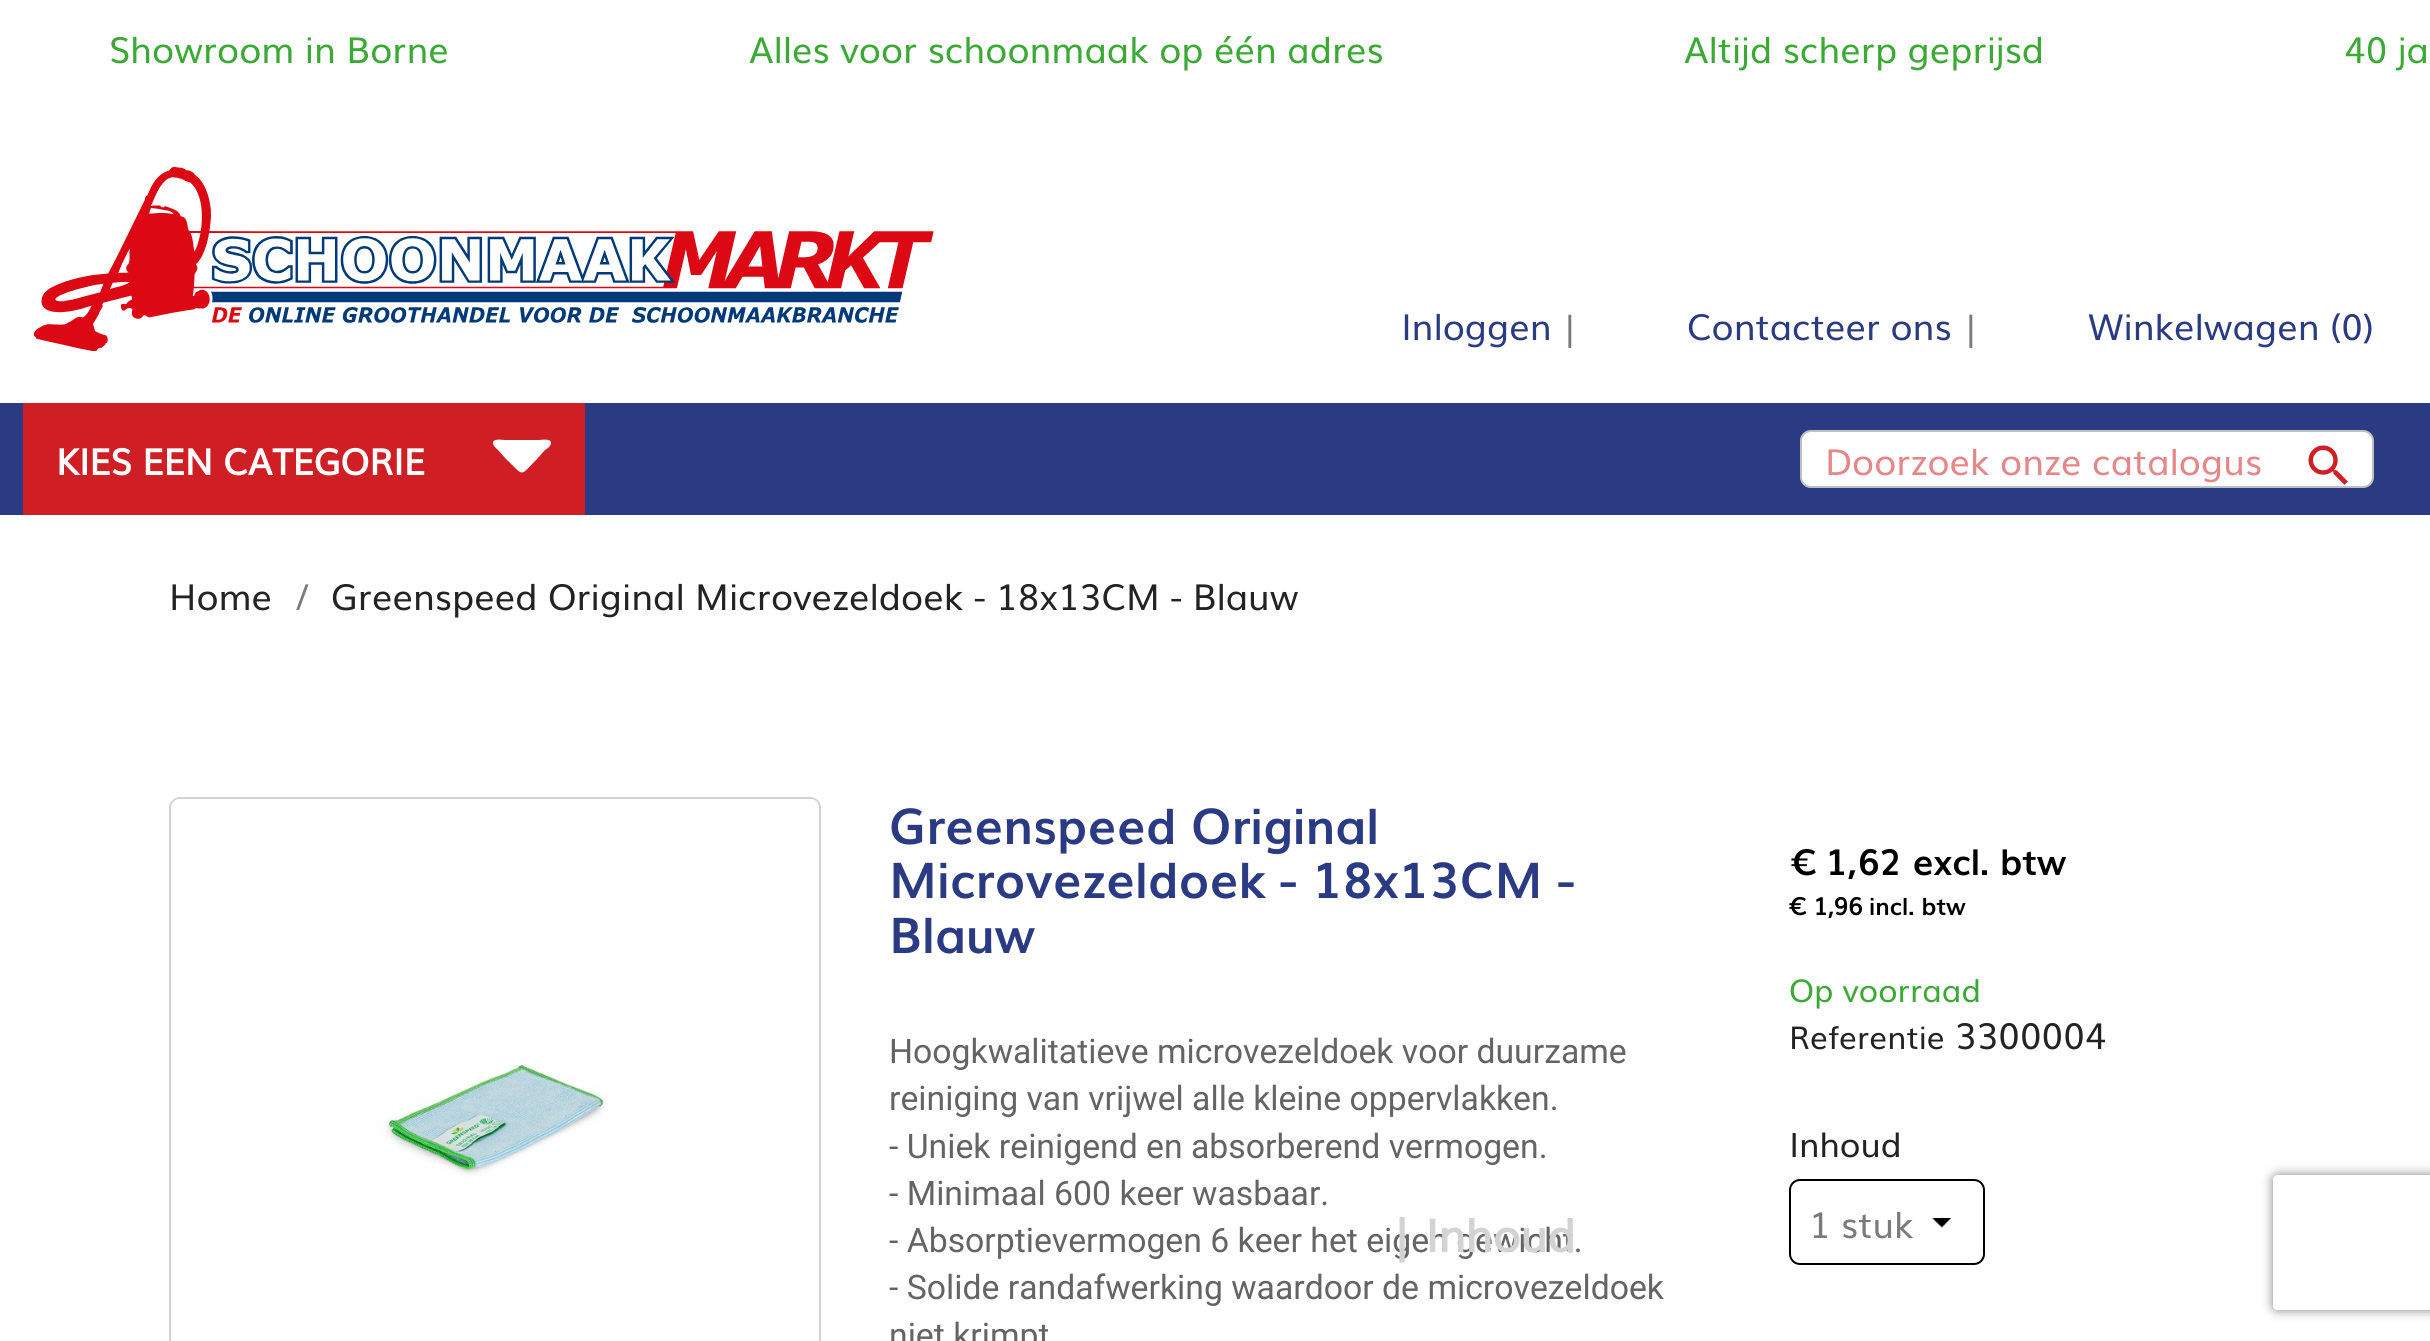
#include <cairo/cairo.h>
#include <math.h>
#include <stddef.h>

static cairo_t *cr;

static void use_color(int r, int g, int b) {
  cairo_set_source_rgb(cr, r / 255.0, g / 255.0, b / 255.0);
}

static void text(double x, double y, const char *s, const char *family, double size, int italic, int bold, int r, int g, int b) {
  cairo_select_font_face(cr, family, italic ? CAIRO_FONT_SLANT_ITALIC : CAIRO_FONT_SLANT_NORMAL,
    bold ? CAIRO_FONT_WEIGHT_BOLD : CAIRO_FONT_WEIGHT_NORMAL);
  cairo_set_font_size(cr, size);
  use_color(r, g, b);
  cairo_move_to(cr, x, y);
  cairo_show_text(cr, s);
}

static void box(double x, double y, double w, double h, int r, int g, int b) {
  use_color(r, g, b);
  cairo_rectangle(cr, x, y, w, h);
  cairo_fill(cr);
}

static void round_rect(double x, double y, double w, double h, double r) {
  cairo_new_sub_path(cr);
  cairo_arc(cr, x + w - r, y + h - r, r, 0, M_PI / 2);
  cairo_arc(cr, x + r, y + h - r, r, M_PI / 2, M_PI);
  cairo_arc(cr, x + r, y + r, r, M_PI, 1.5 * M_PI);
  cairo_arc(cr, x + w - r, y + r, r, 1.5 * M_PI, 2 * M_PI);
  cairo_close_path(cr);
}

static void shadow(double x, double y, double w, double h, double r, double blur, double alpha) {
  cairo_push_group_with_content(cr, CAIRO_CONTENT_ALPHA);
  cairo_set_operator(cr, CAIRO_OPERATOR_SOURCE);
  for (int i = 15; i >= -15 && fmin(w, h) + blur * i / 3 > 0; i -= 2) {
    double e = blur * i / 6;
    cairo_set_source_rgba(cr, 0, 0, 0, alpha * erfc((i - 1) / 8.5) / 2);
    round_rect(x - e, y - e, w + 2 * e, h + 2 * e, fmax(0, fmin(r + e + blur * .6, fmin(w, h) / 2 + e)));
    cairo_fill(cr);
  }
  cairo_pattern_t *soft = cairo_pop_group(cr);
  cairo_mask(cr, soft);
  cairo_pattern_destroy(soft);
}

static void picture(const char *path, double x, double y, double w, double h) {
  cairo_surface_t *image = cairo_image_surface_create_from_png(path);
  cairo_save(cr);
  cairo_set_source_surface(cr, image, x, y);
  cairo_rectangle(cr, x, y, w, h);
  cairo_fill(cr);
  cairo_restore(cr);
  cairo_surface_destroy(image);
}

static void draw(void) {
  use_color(255, 255, 255);
  cairo_paint(cr);
  picture("img_01.png", 34, 167, 900, 184);
  box(0, 403, 2430, 112, 42, 58, 131);
  box(23, 403, 562, 112, 208, 30, 37);
  use_color(255, 255, 255);
  cairo_new_path(cr);
  cairo_move_to(cr, 551, 443);
  cairo_curve_to(cr, 551, 438, 541, 440, 539, 440);
  cairo_line_to(cr, 505, 440);
  cairo_curve_to(cr, 502, 440, 493, 438, 493, 443);
  cairo_curve_to(cr, 493, 446, 497, 449, 498, 450);
  cairo_line_to(cr, 506, 459);
  cairo_curve_to(cr, 525, 477, 519, 477, 537, 459);
  cairo_line_to(cr, 545, 450);
  cairo_curve_to(cr, 547, 449, 551, 446, 551, 443);
  cairo_close_path(cr);
  cairo_fill(cr);
  round_rect(1800, 430, 574, 58, 11);
  cairo_fill(cr);
  round_rect(1801, 431, 572, 56, 10);
  cairo_set_source_rgba(cr, 0, 0, 0, 0.25);
  cairo_stroke(cr);
  picture("img_02.png", 2308, 445, 40, 40);
  round_rect(170, 798, 650, 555, 10);
  use_color(210, 210, 210);
  cairo_stroke(cr);
  picture("img_03.png", 171, 799, 648, 377);
  picture("img_04.png", 1932, 1218, 20, 10);
  round_rect(1790, 1180, 194, 84, 10);
  use_color(0, 0, 0);
  cairo_stroke(cr);
  cairo_save(cr);
  cairo_set_fill_rule(cr, CAIRO_FILL_RULE_EVEN_ODD);
  cairo_new_path(cr);
  cairo_move_to(cr, 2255, 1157);
  cairo_line_to(cr, 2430, 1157);
  cairo_line_to(cr, 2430, 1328);
  cairo_line_to(cr, 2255, 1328);
  cairo_close_path(cr);
  cairo_move_to(cr, 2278, 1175);
  cairo_line_to(cr, 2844, 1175);
  cairo_curve_to(cr, 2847, 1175, 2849, 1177, 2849, 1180);
  cairo_line_to(cr, 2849, 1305);
  cairo_curve_to(cr, 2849, 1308, 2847, 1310, 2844, 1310);
  cairo_line_to(cr, 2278, 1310);
  cairo_curve_to(cr, 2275, 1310, 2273, 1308, 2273, 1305);
  cairo_line_to(cr, 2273, 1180);
  cairo_curve_to(cr, 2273, 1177, 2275, 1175, 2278, 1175);
  cairo_close_path(cr);
  cairo_clip(cr);
  use_color(128, 128, 128);
  shadow(2273, 1175, 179, 135, 5, 5.5, 1);
  cairo_restore(cr);
  text(109, 63, "Showroom in Borne", "Muli", 36, 0, 0, 58, 170, 53);
  text(749, 63, "Alles voor schoonmaak op één adres", "Muli", 36, 0, 0, 58, 170, 53);
  text(1684, 63, "Altijd scherp geprijsd", "Muli", 36, 0, 0, 58, 170, 53);
  text(2344, 63, "40 ja", "Muli", 36, 0, 0, 58, 170, 53);
  text(1401, 340, "Inloggen", "Muli", 36, 0, 0, 42, 58, 131);
  text(1562, 340, "|", "Muli", 33.75, 0, 0, 122, 122, 122);
  text(1687, 340, "Contacteer ons", "Muli", 36, 0, 0, 42, 58, 131);
  text(1963, 340, "|", "Muli", 33.75, 0, 0, 122, 122, 122);
  text(2088, 340, "Winkelwagen (0)", "Muli", 36, 0, 0, 42, 58, 131);
  text(56, 475, "KIES EEN CATEGORIE", "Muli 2", 36, 0, 1, 255, 255, 255);
  text(1825, 475, "Doorzoek onze catalogus", "Muli", 36, 0, 0, 230, 134, 137);
  text(169, 610, "Home", "Muli", 36, 0, 0, 35, 35, 35);
  text(294, 610, "/", "Muli", 36, 0, 0, 122, 122, 122);
  text(331, 610, "Greenspeed Original Microvezeldoek - 18x13CM - Blauw", "Muli", 36, 0, 0, 35, 35, 35);
  text(889, 844, "Greenspeed Original", "Muli", 49.5, 0, 1, 42, 58, 131);
  text(889, 898, "Microvezeldoek - 18x13CM -", "Muli", 49.5, 0, 1, 42, 58, 131);
  text(889, 953, "Blauw", "Muli", 49.5, 0, 1, 42, 58, 131);
  text(889, 1063, "Hoogkwalitatieve microvezeldoek voor duurzame", "Roboto", 33.75, 0, 0, 100, 100, 100);
  text(889, 1110, "reiniging van vrijwel alle kleine oppervlakken.", "Roboto", 33.75, 0, 0, 100, 100, 100);
  text(889, 1158, "- Uniek reinigend en absorberend vermogen.", "Roboto", 33.75, 0, 0, 100, 100, 100);
  text(889, 1205, "- Minimaal 600 keer wasbaar.", "Roboto", 33.75, 0, 0, 100, 100, 100);
  text(889, 1252, "- Absorptievermogen 6 keer het eigen gewicht.", "Roboto", 33.75, 0, 0, 100, 100, 100);
  text(889, 1299, "- Solide randafwerking waardoor de microvezeldoek", "Roboto", 33.75, 0, 0, 100, 100, 100);
  text(889, 1347, "niet krimpt", "Roboto", 33.75, 0, 0, 100, 100, 100);
  text(1789, 875, "€ 1,62 excl. btw", "Muli", 36, 0, 1, 0, 0, 0);
  text(1789, 915, "€ 1,96", "Muli 2", 24, 0, 1, 0, 0, 0);
  text(1869, 915, "incl. btw", "Muli", 24, 0, 1, 0, 0, 0);
  text(1789, 1002, "Op voorraad", "Muli", 31.5, 0, 0, 58, 170, 53);
  text(1789, 1049, "Referentie", "Muli", 31.5, 0, 0, 35, 35, 35);
  text(1955, 1049, "3300004", "Muli", 36, 0, 0, 35, 35, 35);
  text(1391, 1252, "| Inhoud", "Muli 2", 45, 0, 1, 211, 211, 211);
  text(1789, 1157, "Inhoud", "Muli", 33.75, 0, 0, 35, 35, 35);
  text(1809, 1238, "1 stuk", "Muli", 36, 0, 0, 122, 122, 122);
}

int main(void) {
  cairo_surface_t *surface = cairo_image_surface_create(CAIRO_FORMAT_RGB24, 2430, 1341);
  cr = cairo_create(surface);
  cairo_font_options_t *options = cairo_font_options_create();
  cairo_font_options_set_hint_metrics(options, CAIRO_HINT_METRICS_OFF);
  cairo_font_options_set_hint_style(options, CAIRO_HINT_STYLE_NONE);
  cairo_set_font_options(cr, options);
  cairo_set_miter_limit(cr, 4);
  draw();
  cairo_surface_write_to_png(surface, "out.png");
  cairo_font_options_destroy(options);
  cairo_destroy(cr);
  cairo_surface_destroy(surface);
  return 0;
}
